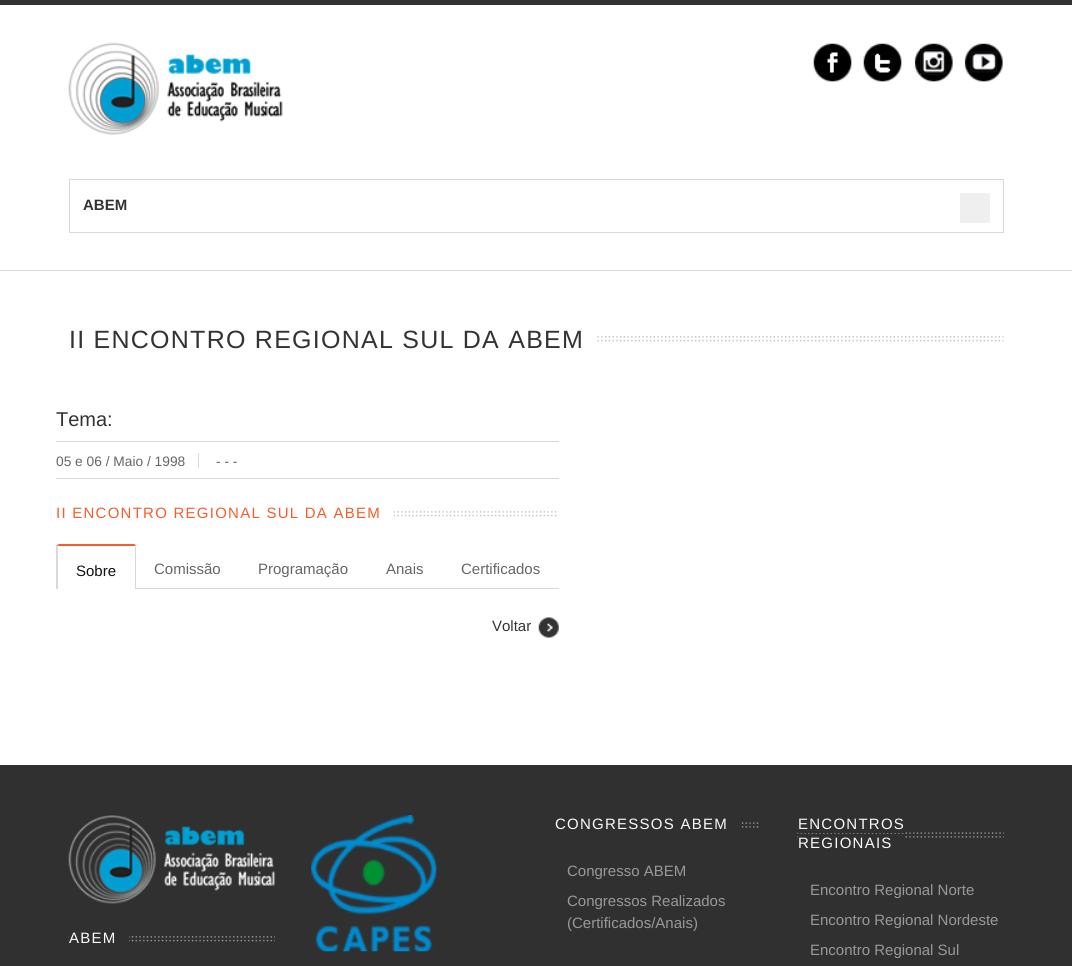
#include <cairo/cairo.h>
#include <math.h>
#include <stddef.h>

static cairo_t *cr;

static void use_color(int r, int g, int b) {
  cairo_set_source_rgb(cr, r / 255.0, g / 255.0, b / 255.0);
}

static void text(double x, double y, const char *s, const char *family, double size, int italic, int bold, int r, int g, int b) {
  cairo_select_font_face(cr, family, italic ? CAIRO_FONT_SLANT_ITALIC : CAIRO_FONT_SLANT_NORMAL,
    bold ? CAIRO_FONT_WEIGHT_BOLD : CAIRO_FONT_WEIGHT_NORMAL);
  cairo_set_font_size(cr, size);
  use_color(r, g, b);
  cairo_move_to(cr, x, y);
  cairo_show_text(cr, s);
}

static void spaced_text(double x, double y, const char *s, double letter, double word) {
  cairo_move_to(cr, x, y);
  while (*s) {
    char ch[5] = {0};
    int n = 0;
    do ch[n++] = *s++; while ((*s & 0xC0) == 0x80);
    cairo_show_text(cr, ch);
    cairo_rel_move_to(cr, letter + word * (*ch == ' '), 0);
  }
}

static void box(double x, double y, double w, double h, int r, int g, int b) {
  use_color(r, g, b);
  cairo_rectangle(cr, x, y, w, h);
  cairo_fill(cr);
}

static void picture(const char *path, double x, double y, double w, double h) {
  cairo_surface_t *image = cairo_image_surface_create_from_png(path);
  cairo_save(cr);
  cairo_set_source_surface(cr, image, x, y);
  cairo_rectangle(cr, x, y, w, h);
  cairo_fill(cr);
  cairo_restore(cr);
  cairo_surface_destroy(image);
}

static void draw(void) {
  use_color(255, 255, 255);
  cairo_paint(cr);
  box(0, 0, 1072, 5, 51, 51, 51);
  picture("img_01.png", 68, 42, 215, 93);
  picture("img_02.png", 813, 43, 39, 39);
  picture("img_03.png", 863, 43, 39, 39);
  picture("img_04.png", 914, 43, 39, 39);
  picture("img_05.png", 964, 43, 39, 39);
  box(0, 270, 1072, 1, 217, 217, 217);
  cairo_rectangle(cr, 69.5, 179.5, 934, 53);
  cairo_set_line_width(cr, 1);
  cairo_stroke(cr);
  box(960, 193, 30, 30, 239, 239, 239);
  picture("img_06.png", 68, 336, 936, 6);
  box(69, 336, 527, 6, 255, 255, 255);
  box(56, 441, 503, 1, 217, 217, 217);
  box(56, 478, 503, 1, 217, 217, 217);
  box(198, 453, 1, 15, 217, 217, 217);
  picture("img_07.png", 394, 511, 165, 6);
  box(136, 588, 423, 1, 217, 217, 217);
  use_color(245, 93, 45);
  cairo_new_path(cr);
  cairo_move_to(cr, 59, 544);
  cairo_line_to(cr, 134, 544);
  cairo_line_to(cr, 136, 545);
  cairo_line_to(cr, 135, 546);
  cairo_line_to(cr, 58, 546);
  cairo_line_to(cr, 58, 547);
  cairo_line_to(cr, 57, 545);
  cairo_close_path(cr);
  cairo_fill(cr);
  use_color(217, 217, 217);
  cairo_new_path(cr);
  cairo_move_to(cr, 135, 589);
  cairo_line_to(cr, 135, 546);
  cairo_line_to(cr, 136, 545);
  cairo_line_to(cr, 136, 589);
  cairo_close_path(cr);
  cairo_fill(cr);
  cairo_new_path(cr);
  cairo_move_to(cr, 56, 589);
  cairo_line_to(cr, 58, 589);
  cairo_line_to(cr, 58, 547);
  cairo_line_to(cr, 57, 545);
  cairo_line_to(cr, 56, 545);
  cairo_close_path(cr);
  cairo_fill(cr);
  picture("img_08.png", 538, 617, 21, 21);
  box(0, 765, 1072, 201, 48, 48, 48);
  picture("img_09.png", 68, 815, 207, 89);
  picture("img_10.png", 68, 936, 207, 6);
  box(69, 936, 60, 6, 48, 48, 48);
  picture("img_11.png", 311, 815, 126, 137);
  picture("img_12.png", 741, 822, 18, 6);
  picture("img_13.png", 797, 832, 207, 6);
  box(798, 832, 106, 1, 48, 48, 48);
  box(798, 836, 106, 2, 48, 48, 48);
  text(83, 210, "ABEM", "Liberation Sans", 15, 0, 1, 51, 51, 51);
  cairo_select_font_face(cr, "Liberation Sans", CAIRO_FONT_SLANT_NORMAL, CAIRO_FONT_WEIGHT_NORMAL);
  cairo_set_font_size(cr, 25);
  spaced_text(69, 348, "II ENCONTRO REGIONAL SUL DA ABEM", 1.25, 0);
  text(56, 426, "Tema:", "Liberation Sans", 20, 0, 0, 51, 51, 51);
  text(56, 466, "05 e 06 / Maio / 1998", "Liberation Sans", 13.75, 0, 0, 102, 102, 102);
  text(216, 466, "- - -", "Liberation Sans", 13.75, 0, 0, 102, 102, 102);
  cairo_set_font_size(cr, 15);
  use_color(245, 93, 45);
  spaced_text(56, 518, "II ENCONTRO REGIONAL SUL DA ABEM", 1.25, 0);
  text(76, 576, "Sobre", "Liberation Sans", 15, 0, 0, 17, 17, 17);
  text(154, 574, "Comissão", "Liberation Sans", 15, 0, 0, 102, 102, 102);
  text(258, 574, "Programação", "Liberation Sans", 15, 0, 0, 102, 102, 102);
  text(386, 574, "Anais", "Liberation Sans", 15, 0, 0, 102, 102, 102);
  text(461, 574, "Certificados", "Liberation Sans", 15, 0, 0, 102, 102, 102);
  text(492, 631, "Voltar", "Liberation Sans", 15, 0, 0, 51, 51, 51);
  use_color(250, 250, 250);
  spaced_text(69, 943, "ABEM", 1.25, 0);
  spaced_text(555, 829, "CONGRESSOS ABEM", 1.25, 0);
  text(567, 876, "Congresso ABEM", "Liberation Sans", 15, 0, 0, 153, 153, 153);
  text(567, 906, "Congressos Realizados", "Liberation Sans", 15, 0, 0, 153, 153, 153);
  text(567, 928, "(Certificados/Anais)", "Liberation Sans", 15, 0, 0, 153, 153, 153);
  use_color(250, 250, 250);
  spaced_text(798, 829, "ENCONTROS", 1.25, 0);
  spaced_text(798, 848, "REGIONAIS", 1.25, 0);
  text(810, 895, "Encontro Regional Norte", "Liberation Sans", 15, 0, 0, 153, 153, 153);
  text(810, 925, "Encontro Regional Nordeste", "Liberation Sans", 15, 0, 0, 153, 153, 153);
  text(810, 955, "Encontro Regional Sul", "Liberation Sans", 15, 0, 0, 153, 153, 153);
}

int main(void) {
  cairo_surface_t *surface = cairo_image_surface_create(CAIRO_FORMAT_RGB24, 1072, 966);
  cr = cairo_create(surface);
  cairo_font_options_t *options = cairo_font_options_create();
  cairo_font_options_set_hint_metrics(options, CAIRO_HINT_METRICS_OFF);
  cairo_font_options_set_hint_style(options, CAIRO_HINT_STYLE_NONE);
  cairo_set_font_options(cr, options);
  cairo_set_miter_limit(cr, 4);
  draw();
  cairo_surface_write_to_png(surface, "out.png");
  cairo_font_options_destroy(options);
  cairo_destroy(cr);
  cairo_surface_destroy(surface);
  return 0;
}
